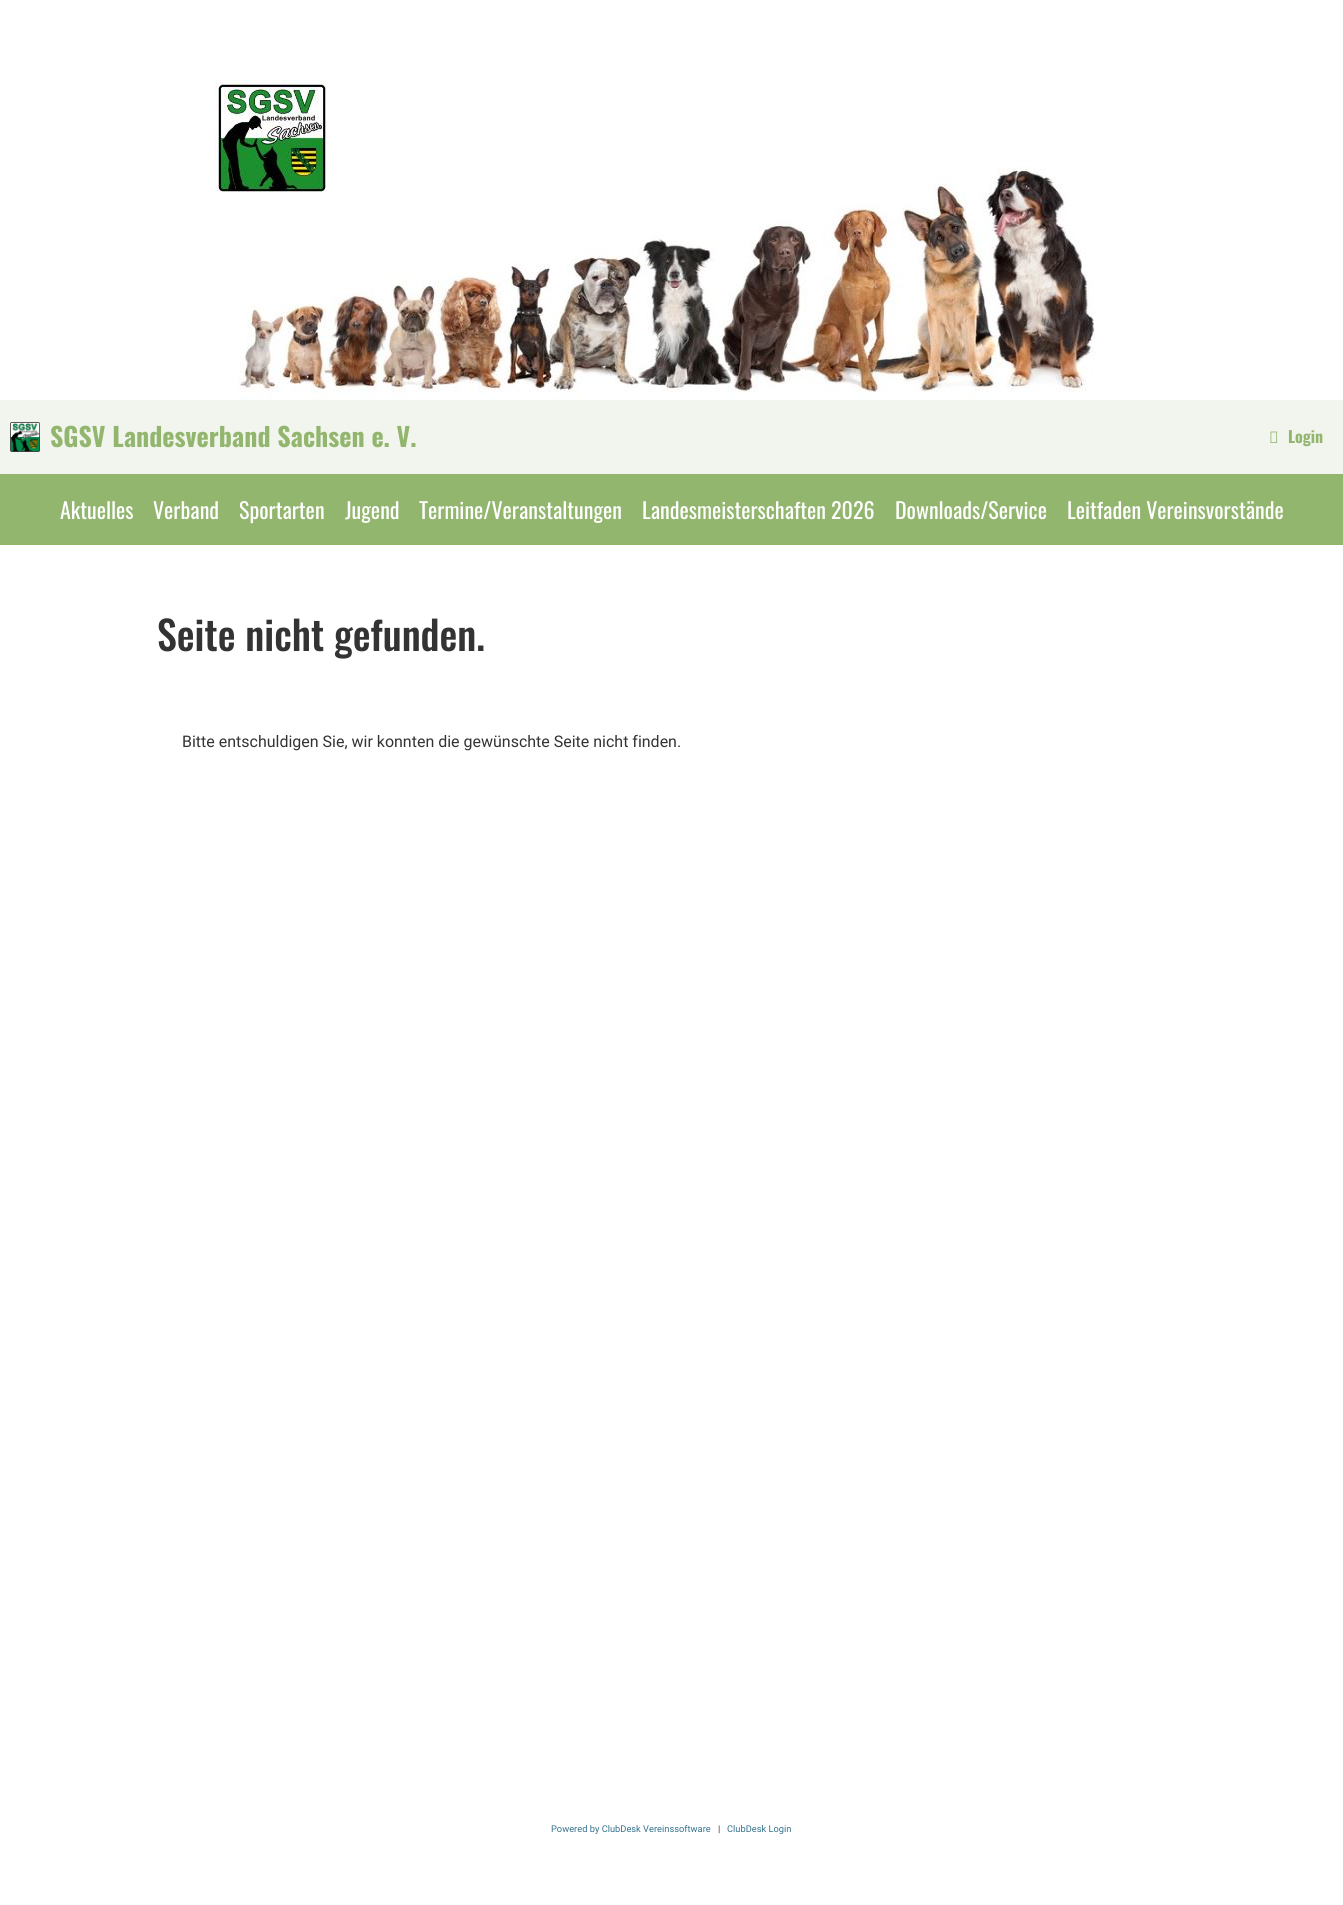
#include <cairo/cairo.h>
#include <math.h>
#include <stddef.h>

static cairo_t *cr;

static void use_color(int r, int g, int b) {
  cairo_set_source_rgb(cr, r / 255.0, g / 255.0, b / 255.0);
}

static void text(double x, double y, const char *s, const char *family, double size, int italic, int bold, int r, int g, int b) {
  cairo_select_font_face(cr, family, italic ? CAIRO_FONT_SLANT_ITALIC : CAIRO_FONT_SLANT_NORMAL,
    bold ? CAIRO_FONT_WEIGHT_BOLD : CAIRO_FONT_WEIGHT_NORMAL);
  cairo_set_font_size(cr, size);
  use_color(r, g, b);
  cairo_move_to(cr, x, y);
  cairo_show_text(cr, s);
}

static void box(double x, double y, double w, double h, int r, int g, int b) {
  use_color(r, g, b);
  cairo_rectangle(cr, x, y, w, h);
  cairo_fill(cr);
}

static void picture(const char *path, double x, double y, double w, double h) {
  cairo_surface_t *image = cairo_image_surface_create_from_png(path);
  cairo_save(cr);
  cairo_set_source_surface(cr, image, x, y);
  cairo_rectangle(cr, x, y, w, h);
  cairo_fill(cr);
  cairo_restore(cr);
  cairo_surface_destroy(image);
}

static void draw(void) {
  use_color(255, 255, 255);
  cairo_paint(cr);
  picture("img_01.png", 215, 80, 880, 320);
  box(0, 400, 1343, 74, 241, 245, 237);
  picture("img_02.png", 10, 422, 30, 30);
  picture("img_03.png", 1270, 431, 8, 12);
  box(0, 474, 1343, 71, 147, 182, 111);
  text(50, 447, "SGSV Landesverband Sachsen e. V.", "Oswald", 26, 0, 1, 147, 182, 111);
  text(1288, 443, "Login", "Oswald", 16, 0, 1, 147, 182, 111);
  text(60, 519, "Aktuelles", "Oswald", 22, 0, 0, 255, 255, 255);
  text(153, 519, "Verband", "Oswald", 22, 0, 0, 255, 255, 255);
  text(239, 519, "Sportarten", "Oswald", 22, 0, 0, 255, 255, 255);
  text(345, 519, "Jugend", "Oswald", 22, 0, 0, 255, 255, 255);
  text(419, 519, "Termine/Veranstaltungen", "Oswald", 22, 0, 0, 255, 255, 255);
  text(642, 519, "Landesmeisterschaften 2026", "Oswald", 22, 0, 0, 255, 255, 255);
  text(895, 519, "Downloads/Service", "Oswald", 22, 0, 0, 255, 255, 255);
  text(1067, 519, "Leitfaden Vereinsvorstände", "Oswald", 22, 0, 0, 255, 255, 255);
  text(157, 651, "Seite nicht gefunden.", "Oswald Medium", 40, 0, 0, 51, 51, 51);
  text(182, 747, "Bitte entschuldigen Sie, wir konnten die gewünschte Seite nicht finden.", "Roboto", 16, 0, 0, 51, 51, 51);
  text(551, 1832, "Powered by ClubDesk Vereinssoftware", "Roboto", 9.3, 0, 0, 51, 112, 140);
  text(718, 1832, "|", "Roboto", 9.3, 0, 0, 51, 51, 51);
  text(727, 1832, "ClubDesk Login", "Roboto", 9.3, 0, 0, 51, 112, 140);
}

int main(void) {
  cairo_surface_t *surface = cairo_image_surface_create(CAIRO_FORMAT_RGB24, 1343, 1905);
  cr = cairo_create(surface);
  cairo_font_options_t *options = cairo_font_options_create();
  cairo_font_options_set_hint_metrics(options, CAIRO_HINT_METRICS_OFF);
  cairo_font_options_set_hint_style(options, CAIRO_HINT_STYLE_NONE);
  cairo_set_font_options(cr, options);
  cairo_set_miter_limit(cr, 4);
  draw();
  cairo_surface_write_to_png(surface, "out.png");
  cairo_font_options_destroy(options);
  cairo_destroy(cr);
  cairo_surface_destroy(surface);
  return 0;
}
